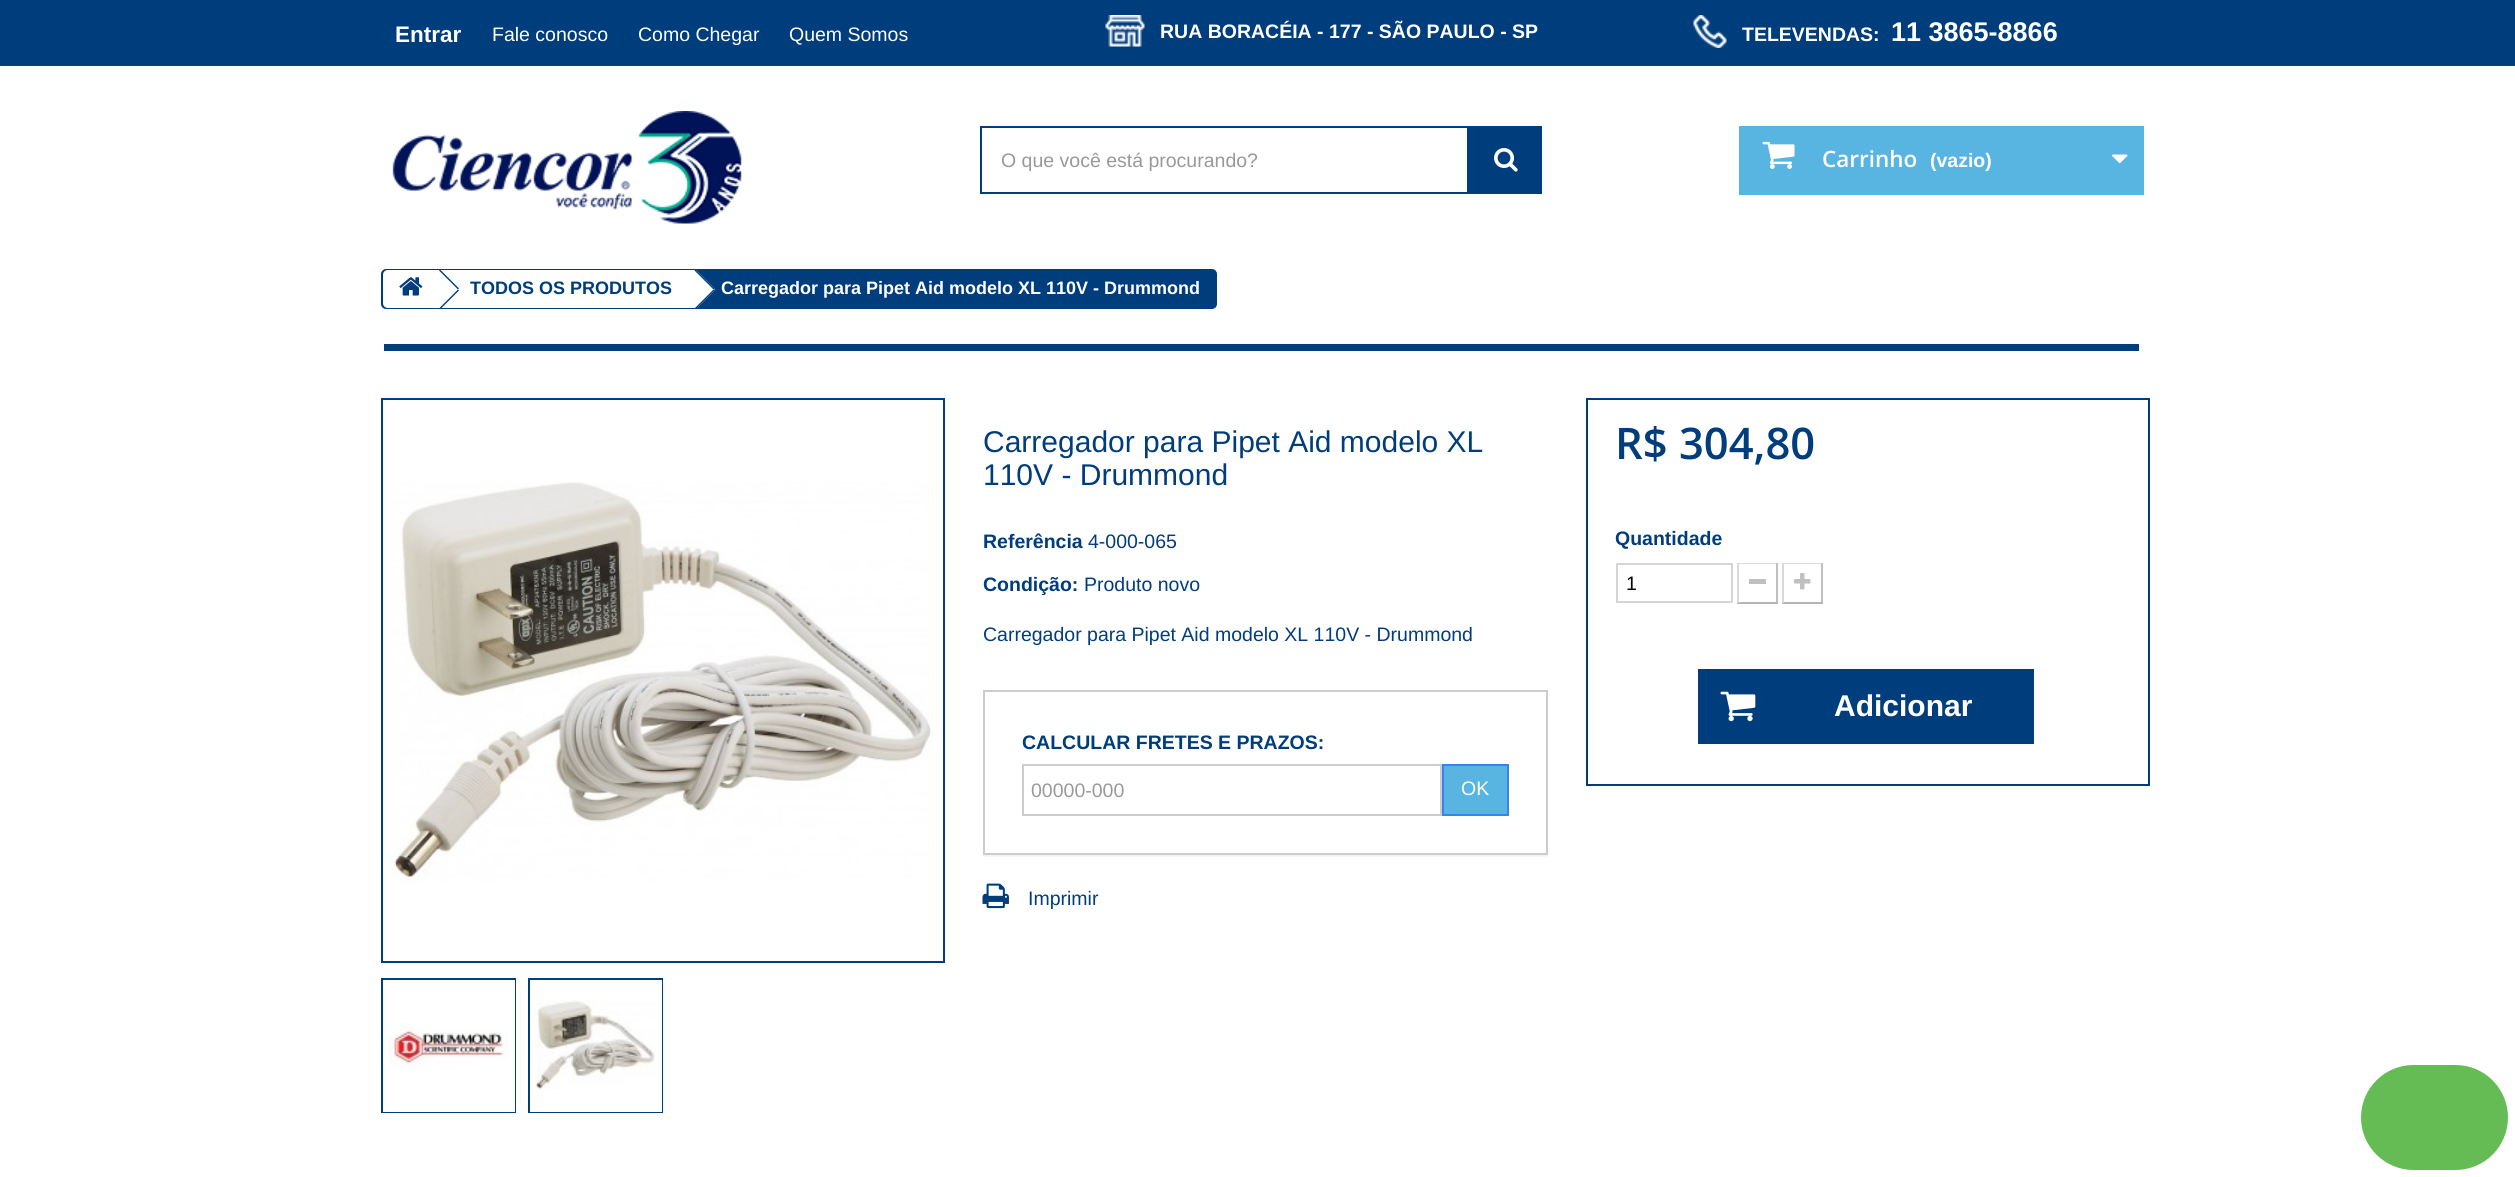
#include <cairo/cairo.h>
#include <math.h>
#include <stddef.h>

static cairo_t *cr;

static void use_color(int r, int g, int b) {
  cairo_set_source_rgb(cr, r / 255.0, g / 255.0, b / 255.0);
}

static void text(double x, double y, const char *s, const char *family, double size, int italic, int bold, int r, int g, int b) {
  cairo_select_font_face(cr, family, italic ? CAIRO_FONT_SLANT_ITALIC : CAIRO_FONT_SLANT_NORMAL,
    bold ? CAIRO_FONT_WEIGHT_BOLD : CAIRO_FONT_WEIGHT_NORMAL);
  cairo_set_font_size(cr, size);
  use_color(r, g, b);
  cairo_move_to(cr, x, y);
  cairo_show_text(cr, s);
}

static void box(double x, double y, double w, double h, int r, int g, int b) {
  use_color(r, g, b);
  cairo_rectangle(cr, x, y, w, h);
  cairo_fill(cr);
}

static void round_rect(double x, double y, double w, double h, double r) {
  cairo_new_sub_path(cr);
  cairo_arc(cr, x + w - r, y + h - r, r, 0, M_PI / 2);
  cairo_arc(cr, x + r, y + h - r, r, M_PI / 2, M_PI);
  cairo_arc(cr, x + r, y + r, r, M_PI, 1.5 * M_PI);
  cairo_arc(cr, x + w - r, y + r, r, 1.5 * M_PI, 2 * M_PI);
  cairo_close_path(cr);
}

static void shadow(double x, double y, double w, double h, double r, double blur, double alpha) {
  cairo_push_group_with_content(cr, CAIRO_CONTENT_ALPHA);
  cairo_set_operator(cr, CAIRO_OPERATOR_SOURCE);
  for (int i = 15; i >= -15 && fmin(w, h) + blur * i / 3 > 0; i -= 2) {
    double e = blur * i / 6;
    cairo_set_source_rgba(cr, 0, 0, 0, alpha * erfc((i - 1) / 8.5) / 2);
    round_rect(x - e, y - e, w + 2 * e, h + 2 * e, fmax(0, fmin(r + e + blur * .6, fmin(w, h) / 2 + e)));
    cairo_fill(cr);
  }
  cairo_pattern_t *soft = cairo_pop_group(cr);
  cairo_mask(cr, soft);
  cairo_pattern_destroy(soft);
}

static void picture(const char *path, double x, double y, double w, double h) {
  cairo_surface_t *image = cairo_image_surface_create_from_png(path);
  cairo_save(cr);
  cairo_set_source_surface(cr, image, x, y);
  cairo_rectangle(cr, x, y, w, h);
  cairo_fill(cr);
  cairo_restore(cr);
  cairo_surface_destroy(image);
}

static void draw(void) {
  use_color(255, 255, 255);
  cairo_paint(cr);
  box(0, 0, 2515, 66, 0, 61, 124);
  picture("img_01.png", 1105, 15, 40, 32);
  picture("img_02.png", 1693, 15, 34, 33);
  picture("img_03.png", 392, 111, 350, 113);
  cairo_rectangle(cr, 981, 127, 560, 66);
  cairo_stroke(cr);
  box(1467, 128, 73, 64, 0, 61, 124);
  picture("img_04.png", 1494, 148, 24, 24);
  box(1739, 126, 405, 69, 88, 181, 225);
  picture("img_05.png", 1762, 141, 33, 28);
  picture("img_06.png", 2112, 154, 16, 10);
  use_color(0, 61, 124);
  round_rect(382, 270, 834, 38, 4);
  cairo_fill_preserve(cr);
  cairo_stroke(cr);
  use_color(255, 255, 255);
  cairo_new_path(cr);
  cairo_move_to(cr, 388, 270);
  cairo_line_to(cr, 440, 270);
  cairo_line_to(cr, 440, 308);
  cairo_line_to(cr, 388, 308);
  cairo_curve_to(cr, 385, 308, 383, 306, 383, 303);
  cairo_line_to(cr, 383, 275);
  cairo_curve_to(cr, 383, 272, 385, 270, 388, 270);
  cairo_close_path(cr);
  cairo_fill(cr);
  box(441, 270, 251, 38, 255, 255, 255);
  cairo_new_path(cr);
  cairo_move_to(cr, 441, 270);
  cairo_line_to(cr, 437, 270);
  cairo_line_to(cr, 420, 287);
  cairo_curve_to(cr, 418, 289, 418, 290, 420, 292);
  cairo_line_to(cr, 436, 308);
  cairo_line_to(cr, 442, 308);
  cairo_line_to(cr, 458, 292);
  cairo_curve_to(cr, 459, 290, 459, 289, 458, 287);
  cairo_close_path(cr);
  cairo_fill(cr);
  picture("img_07.png", 399, 277, 24, 19);
  use_color(0, 61, 124);
  cairo_new_path(cr);
  cairo_move_to(cr, 440, 269.5);
  cairo_line_to(cr, 459, 288.5);
  cairo_line_to(cr, 458, 289.5);
  cairo_line_to(cr, 439, 270.5);
  cairo_close_path(cr);
  cairo_fill(cr);
  cairo_new_path(cr);
  cairo_move_to(cr, 458, 289.5);
  cairo_line_to(cr, 459, 290.5);
  cairo_line_to(cr, 441.5, 308);
  cairo_line_to(cr, 439.5, 308);
  cairo_close_path(cr);
  cairo_fill(cr);
  use_color(255, 255, 255);
  cairo_new_path(cr);
  cairo_move_to(cr, 696, 270);
  cairo_line_to(cr, 692, 270);
  cairo_line_to(cr, 675, 287);
  cairo_curve_to(cr, 674, 289, 674, 290, 675, 292);
  cairo_line_to(cr, 691, 308);
  cairo_line_to(cr, 697, 308);
  cairo_line_to(cr, 713, 292);
  cairo_curve_to(cr, 715, 290, 715, 289, 713, 287);
  cairo_close_path(cr);
  cairo_fill(cr);
  use_color(0, 61, 124);
  cairo_new_path(cr);
  cairo_move_to(cr, 695.5, 269.5);
  cairo_line_to(cr, 714.5, 288.5);
  cairo_line_to(cr, 713.5, 289.5);
  cairo_line_to(cr, 694.5, 270.5);
  cairo_close_path(cr);
  cairo_fill(cr);
  cairo_new_path(cr);
  cairo_move_to(cr, 713.5, 289.5);
  cairo_line_to(cr, 714.5, 290.5);
  cairo_line_to(cr, 697, 308);
  cairo_line_to(cr, 695, 308);
  cairo_close_path(cr);
  cairo_fill(cr);
  box(384, 344, 1755, 7, 0, 61, 124);
  cairo_rectangle(cr, 382, 399, 562, 563);
  cairo_stroke(cr);
  picture("img_08.png", 390, 482, 543, 403);
  cairo_rectangle(cr, 382, 979, 133, 133);
  cairo_stroke(cr);
  box(383, 980, 132, 132, 255, 255, 255);
  picture("img_09.png", 388, 1022, 121, 48);
  cairo_rectangle(cr, 529, 979, 133, 133);
  use_color(0, 61, 124);
  cairo_stroke(cr);
  box(530, 980, 132, 132, 255, 255, 255);
  picture("img_10.png", 535, 1000, 121, 90);
  cairo_save(cr);
  cairo_rectangle(cr, 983, 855, 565, 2);
  cairo_clip(cr);
  use_color(0, 0, 0);
  shadow(983, 692, 565, 165, 0, 1, 0.05);
  cairo_restore(cr);
  cairo_rectangle(cr, 984, 691, 563, 163);
  use_color(204, 204, 204);
  cairo_stroke(cr);
  cairo_rectangle(cr, 1023, 765, 418, 50);
  cairo_stroke(cr);
  use_color(88, 181, 225);
  cairo_rectangle(cr, 1443, 765, 65, 50);
  cairo_fill_preserve(cr);
  use_color(57, 131, 241);
  cairo_stroke(cr);
  picture("img_11.png", 982, 883, 27, 26);
  cairo_rectangle(cr, 1587, 399, 562, 386);
  use_color(0, 61, 124);
  cairo_stroke(cr);
  cairo_rectangle(cr, 1617, 564, 115, 38);
  use_color(214, 212, 212);
  cairo_stroke(cr);
  box(1737, 563, 41, 1, 222, 220, 220);
  box(1776, 563, 2, 40, 193, 191, 191);
  box(1737, 602, 41, 2, 181, 180, 180);
  box(1737, 563, 2, 40, 218, 216, 216);
  box(1749, 579, 17, 5, 192, 192, 192);
  box(1782, 563, 41, 1, 222, 220, 220);
  box(1821, 563, 2, 40, 193, 191, 191);
  box(1782, 602, 41, 2, 181, 180, 180);
  box(1782, 563, 2, 40, 218, 216, 216);
  picture("img_12.png", 1794, 573, 17, 17);
  box(1698, 669, 336, 75, 0, 61, 124);
  picture("img_13.png", 1720, 691, 36, 31);
  use_color(101, 188, 84);
  round_rect(2361, 1065, 147, 105, 52.5);
  cairo_fill(cr);
  text(395, 42, "Entrar", "Liberation Sans", 22.5, 0, 1, 255, 255, 255);
  text(492, 41, "Fale conosco", "Liberation Sans", 19.5, 0, 0, 255, 255, 255);
  text(638, 41, "Como Chegar", "Liberation Sans", 19.5, 0, 0, 255, 255, 255);
  text(789, 41, "Quem Somos", "Liberation Sans", 19.5, 0, 0, 255, 255, 255);
  text(1160, 38, "RUA BORACÉIA - 177 - SÃO PAULO - SP", "Liberation Sans", 19.5, 0, 1, 255, 255, 255);
  text(1742, 41, "TELEVENDAS:", "Liberation Sans", 19.5, 0, 1, 255, 255, 255);
  text(1891, 41, "11 3865-8866", "Liberation Sans", 27, 0, 1, 255, 255, 255);
  text(1001, 167, "O que você está procurando?", "Liberation Sans", 19.5, 0, 0, 153, 153, 153);
  text(1822, 167, "Carrinho", "Open Sans SemiBold", 22.5, 0, 0, 255, 255, 255);
  text(1930, 167, "(vazio)", "Liberation Sans", 19.5, 0, 1, 255, 255, 255);
  text(470, 294, "TODOS OS PRODUTOS", "Liberation Sans", 18, 0, 1, 0, 61, 124);
  text(721, 294, "Carregador para Pipet Aid modelo XL 110V - Drummond", "Liberation Sans", 18, 0, 1, 255, 255, 255);
  text(983, 452, "Carregador para Pipet Aid modelo XL", "Liberation Sans", 30, 0, 0, 0, 61, 124);
  text(983, 485, "110V - Drummond", "Liberation Sans", 30, 0, 0, 0, 61, 124);
  text(983, 548, "Referência", "Liberation Sans", 19.5, 0, 1, 0, 61, 124);
  text(1088, 548, "4-000-065", "Liberation Sans", 19.5, 0, 0, 0, 61, 124);
  text(983, 591, "Condição:", "Liberation Sans", 19.5, 0, 1, 0, 61, 124);
  text(1084, 591, "Produto novo", "Liberation Sans", 19.5, 0, 0, 0, 61, 124);
  text(983, 641, "Carregador para Pipet Aid modelo XL 110V - Drummond", "Liberation Sans", 19.5, 0, 0, 0, 61, 124);
  text(1022, 749, "CALCULAR FRETES E PRAZOS:", "Liberation Sans", 19.5, 0, 1, 0, 61, 124);
  text(1031, 797, "00000-000", "Liberation Sans", 19.5, 0, 0, 153, 153, 153);
  text(1461, 795, "OK", "Liberation Sans", 19.5, 0, 0, 255, 255, 255);
  text(1028, 905, "Imprimir", "Liberation Sans", 19.5, 0, 0, 0, 61, 124);
  text(1615, 459, "R$ 304,80", "Open Sans SemiBold", 43.5, 0, 0, 0, 61, 124);
  text(1615, 545, "Quantidade", "Liberation Sans", 19.5, 0, 1, 0, 61, 124);
  text(1626, 590, "1", "Liberation Sans", 19.5, 0, 0, 0, 0, 0);
  text(1834, 716, "Adicionar", "Liberation Sans", 30, 0, 1, 255, 255, 255);
}

int main(void) {
  cairo_surface_t *surface = cairo_image_surface_create(CAIRO_FORMAT_RGB24, 2515, 1177);
  cr = cairo_create(surface);
  cairo_font_options_t *options = cairo_font_options_create();
  cairo_font_options_set_hint_metrics(options, CAIRO_HINT_METRICS_OFF);
  cairo_font_options_set_hint_style(options, CAIRO_HINT_STYLE_NONE);
  cairo_set_font_options(cr, options);
  cairo_set_miter_limit(cr, 4);
  draw();
  cairo_surface_write_to_png(surface, "out.png");
  cairo_font_options_destroy(options);
  cairo_destroy(cr);
  cairo_surface_destroy(surface);
  return 0;
}
